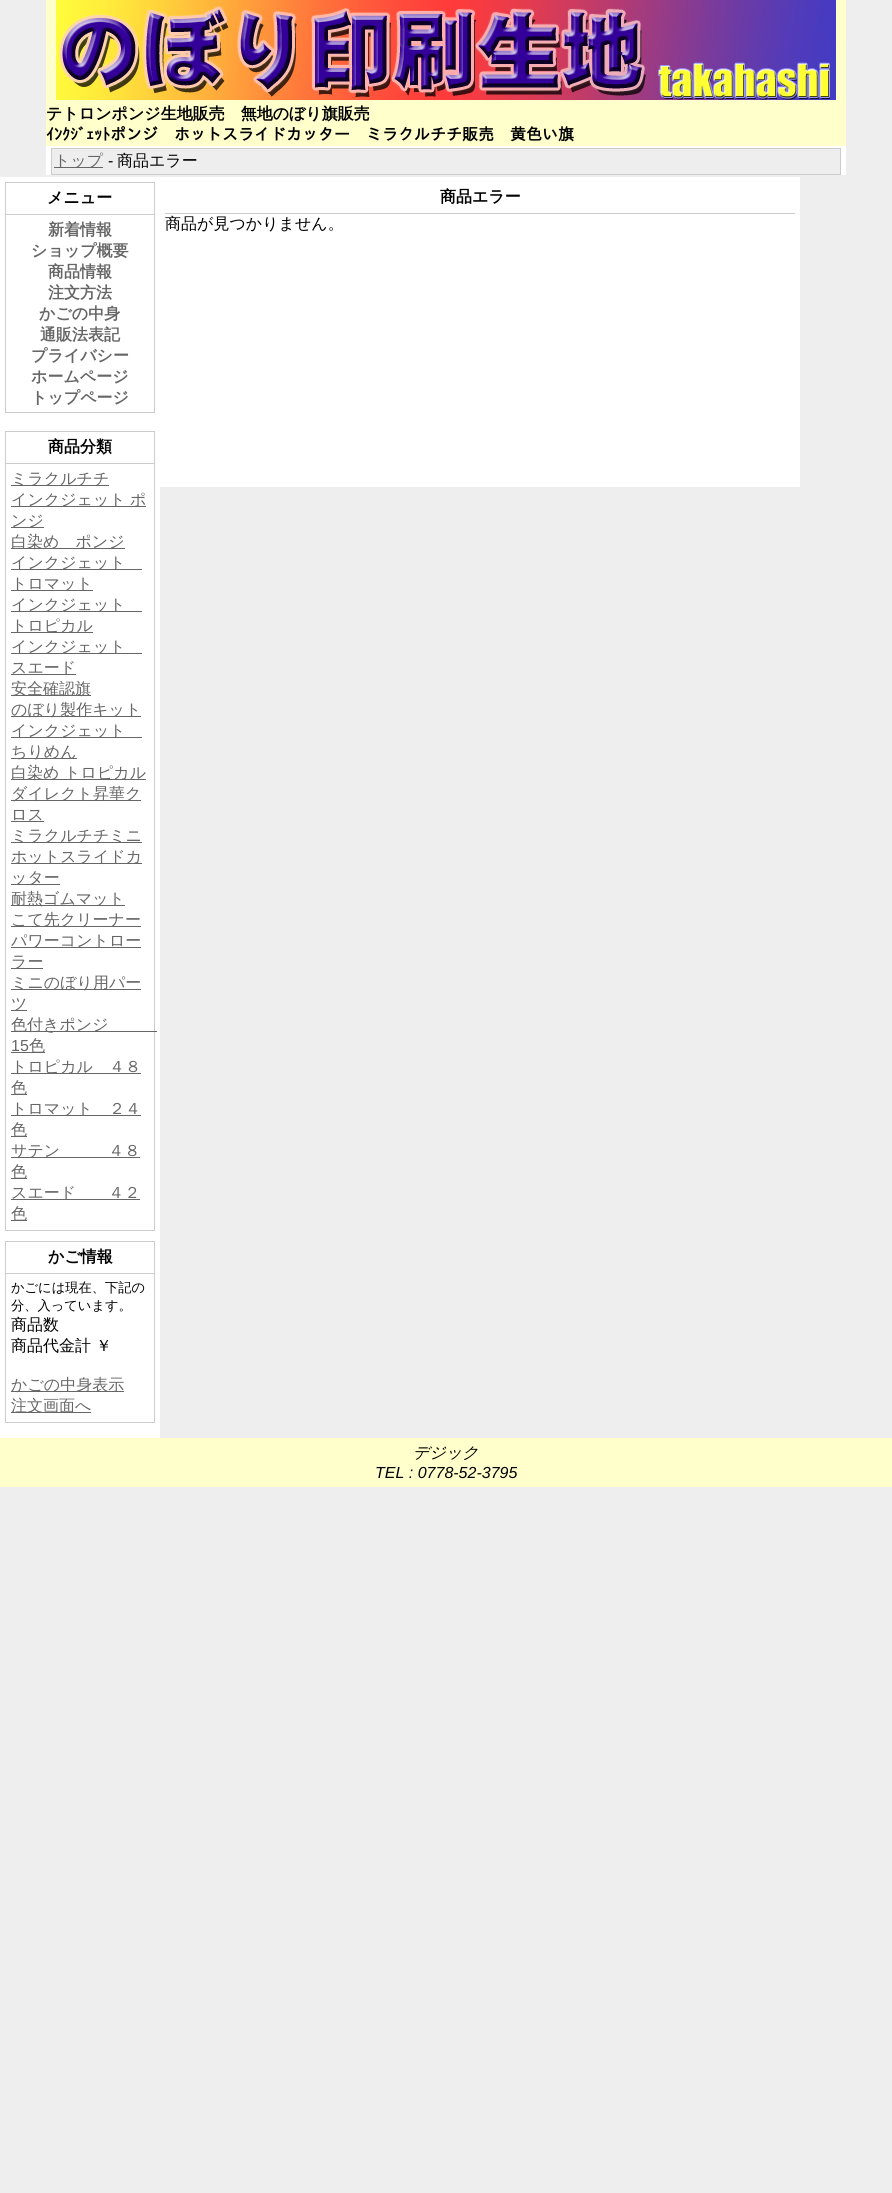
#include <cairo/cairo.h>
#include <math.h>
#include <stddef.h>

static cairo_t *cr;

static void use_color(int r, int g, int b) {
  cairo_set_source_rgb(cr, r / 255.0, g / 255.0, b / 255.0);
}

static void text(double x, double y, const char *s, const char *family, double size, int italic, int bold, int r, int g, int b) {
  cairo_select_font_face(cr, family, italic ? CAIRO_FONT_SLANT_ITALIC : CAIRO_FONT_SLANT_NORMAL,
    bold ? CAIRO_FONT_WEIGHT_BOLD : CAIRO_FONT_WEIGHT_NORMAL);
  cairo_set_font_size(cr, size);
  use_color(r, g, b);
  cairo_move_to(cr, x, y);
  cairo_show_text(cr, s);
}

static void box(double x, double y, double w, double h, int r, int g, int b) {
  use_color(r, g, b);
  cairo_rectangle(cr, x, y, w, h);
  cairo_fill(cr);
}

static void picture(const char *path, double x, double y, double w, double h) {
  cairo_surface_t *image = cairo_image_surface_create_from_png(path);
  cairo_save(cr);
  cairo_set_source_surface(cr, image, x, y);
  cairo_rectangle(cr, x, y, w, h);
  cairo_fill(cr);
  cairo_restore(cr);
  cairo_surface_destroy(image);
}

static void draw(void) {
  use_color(238, 238, 238);
  cairo_paint(cr);
  box(46, 146, 800, 29, 255, 255, 255);
  box(46, 0, 800, 146, 255, 255, 204);
  picture("img_01.png", 56, 0, 780, 100);
  use_color(238, 238, 238);
  cairo_rectangle(cr, 51.5, 148.5, 789, 26);
  cairo_fill_preserve(cr);
  use_color(204, 204, 204);
  cairo_set_line_width(cr, 1);
  cairo_stroke(cr);
  box(54, 167, 49, 1, 102, 102, 102);
  box(0, 177, 160, 1261, 255, 255, 255);
  cairo_rectangle(cr, 5.5, 182.5, 149, 230);
  use_color(204, 204, 204);
  cairo_stroke(cr);
  box(6, 214, 148, 1, 204, 204, 204);
  cairo_rectangle(cr, 5.5, 431.5, 149, 799);
  cairo_stroke(cr);
  box(6, 463, 148, 1, 204, 204, 204);
  box(11, 485, 98, 1, 102, 102, 102);
  box(11, 506, 135, 1, 102, 102, 102);
  box(11, 527, 33, 1, 102, 102, 102);
  box(11, 548, 114, 1, 102, 102, 102);
  box(11, 569, 131, 1, 102, 102, 102);
  box(11, 590, 82, 1, 102, 102, 102);
  box(11, 611, 131, 1, 102, 102, 102);
  box(11, 632, 82, 1, 102, 102, 102);
  box(11, 653, 131, 1, 102, 102, 102);
  box(11, 674, 65, 1, 102, 102, 102);
  box(11, 695, 80, 1, 102, 102, 102);
  box(11, 716, 130, 1, 102, 102, 102);
  box(11, 737, 131, 1, 102, 102, 102);
  box(11, 758, 66, 1, 102, 102, 102);
  box(11, 779, 135, 1, 102, 102, 102);
  box(11, 800, 130, 1, 102, 102, 102);
  box(11, 821, 33, 1, 102, 102, 102);
  box(11, 842, 131, 1, 102, 102, 102);
  box(11, 863, 131, 1, 102, 102, 102);
  box(11, 884, 49, 1, 102, 102, 102);
  box(11, 905, 114, 1, 102, 102, 102);
  box(11, 926, 130, 1, 102, 102, 102);
  box(11, 947, 130, 1, 102, 102, 102);
  box(11, 968, 32, 1, 102, 102, 102);
  box(11, 989, 130, 1, 102, 102, 102);
  box(11, 1010, 16, 1, 102, 102, 102);
  box(11, 1031, 146, 1, 102, 102, 102);
  box(11, 1052, 34, 1, 102, 102, 102);
  box(11, 1073, 130, 1, 102, 102, 102);
  box(11, 1094, 16, 1, 102, 102, 102);
  box(11, 1115, 130, 1, 102, 102, 102);
  box(11, 1136, 16, 1, 102, 102, 102);
  box(11, 1157, 129, 1, 102, 102, 102);
  box(11, 1178, 16, 1, 102, 102, 102);
  box(11, 1199, 129, 1, 102, 102, 102);
  box(11, 1220, 16, 1, 102, 102, 102);
  cairo_rectangle(cr, 5.5, 1241.5, 149, 181);
  use_color(204, 204, 204);
  cairo_stroke(cr);
  box(6, 1273, 148, 1, 204, 204, 204);
  box(11, 1391, 113, 1, 102, 102, 102);
  box(11, 1412, 80, 1, 102, 102, 102);
  box(160, 177, 640, 310, 255, 255, 255);
  box(165, 213, 630, 1, 204, 204, 204);
  box(0, 1438, 892, 49, 255, 255, 204);
  text(46, 119, "テトロンポンジ生地販売　無地のぼり旗販売", "WenQuanYi Zen Hei", 16, 0, 1, 0, 0, 0);
  text(46, 140, "ｲﾝｸｼﾞｪｯﾄポンジ　ホットスライドカッター　ミラクルチチ販売　黄色い旗", "IPAGothic", 16, 0, 1, 0, 0, 0);
  text(54, 166, "トップ", "WenQuanYi Zen Hei Medium", 16, 0, 0, 102, 102, 102);
  text(108, 166, "-", "Liberation Sans", 16, 0, 0, 0, 0, 0);
  text(117, 166, "商品エラー", "WenQuanYi Zen Hei Medium", 16, 0, 0, 0, 0, 0);
  text(47, 203, "メニュー", "WenQuanYi Zen Hei", 16, 0, 1, 0, 0, 0);
  text(48, 235, "新着情報", "WenQuanYi Zen Hei", 16, 0, 1, 102, 102, 102);
  text(31, 256, "ショップ概要", "WenQuanYi Zen Hei", 16, 0, 1, 102, 102, 102);
  text(48, 277, "商品情報", "WenQuanYi Zen Hei", 16, 0, 1, 102, 102, 102);
  text(48, 298, "注文方法", "WenQuanYi Zen Hei", 16, 0, 1, 102, 102, 102);
  text(39, 319, "かごの中身", "WenQuanYi Zen Hei", 16, 0, 1, 102, 102, 102);
  text(40, 340, "通販法表記", "WenQuanYi Zen Hei", 16, 0, 1, 102, 102, 102);
  text(31, 361, "プライバシー", "WenQuanYi Zen Hei", 16, 0, 1, 102, 102, 102);
  text(31, 382, "ホームページ", "WenQuanYi Zen Hei", 16, 0, 1, 102, 102, 102);
  text(31, 403, "トップページ", "WenQuanYi Zen Hei", 16, 0, 1, 102, 102, 102);
  text(48, 452, "商品分類", "WenQuanYi Zen Hei", 16, 0, 1, 0, 0, 0);
  text(11, 484, "ミラクルチチ", "WenQuanYi Zen Hei Medium", 16, 0, 0, 102, 102, 102);
  text(11, 505, "インクジェット", "WenQuanYi Zen Hei Medium", 16, 0, 0, 102, 102, 102);
  text(130, 505, "ポ", "WenQuanYi Zen Hei Medium", 16, 0, 0, 102, 102, 102);
  text(11, 526, "ンジ", "WenQuanYi Zen Hei Medium", 16, 0, 0, 102, 102, 102);
  text(11, 547, "白染め　ポンジ", "WenQuanYi Zen Hei Medium", 16, 0, 0, 102, 102, 102);
  text(11, 568, "インクジェット", "WenQuanYi Zen Hei Medium", 16, 0, 0, 102, 102, 102);
  text(11, 589, "トロマット", "WenQuanYi Zen Hei Medium", 16, 0, 0, 102, 102, 102);
  text(11, 610, "インクジェット", "WenQuanYi Zen Hei Medium", 16, 0, 0, 102, 102, 102);
  text(11, 631, "トロピカル", "WenQuanYi Zen Hei Medium", 16, 0, 0, 102, 102, 102);
  text(11, 652, "インクジェット", "WenQuanYi Zen Hei Medium", 16, 0, 0, 102, 102, 102);
  text(11, 673, "スエード", "WenQuanYi Zen Hei Medium", 16, 0, 0, 102, 102, 102);
  text(11, 694, "安全確認旗", "WenQuanYi Zen Hei Medium", 16, 0, 0, 102, 102, 102);
  text(11, 715, "のぼり製作キット", "WenQuanYi Zen Hei Medium", 16, 0, 0, 102, 102, 102);
  text(11, 736, "インクジェット", "WenQuanYi Zen Hei Medium", 16, 0, 0, 102, 102, 102);
  text(11, 757, "ちりめん", "WenQuanYi Zen Hei Medium", 16, 0, 0, 102, 102, 102);
  text(11, 778, "白染め トロピカル", "WenQuanYi Zen Hei Medium", 16, 0, 0, 102, 102, 102);
  text(11, 799, "ダイレクト昇華ク", "WenQuanYi Zen Hei Medium", 16, 0, 0, 102, 102, 102);
  text(11, 820, "ロス", "WenQuanYi Zen Hei Medium", 16, 0, 0, 102, 102, 102);
  text(11, 841, "ミラクルチチミニ", "WenQuanYi Zen Hei Medium", 16, 0, 0, 102, 102, 102);
  text(11, 862, "ホットスライドカ", "WenQuanYi Zen Hei Medium", 16, 0, 0, 102, 102, 102);
  text(11, 883, "ッター", "WenQuanYi Zen Hei Medium", 16, 0, 0, 102, 102, 102);
  text(11, 904, "耐熱ゴムマット", "WenQuanYi Zen Hei Medium", 16, 0, 0, 102, 102, 102);
  text(11, 925, "こて先クリーナー", "WenQuanYi Zen Hei Medium", 16, 0, 0, 102, 102, 102);
  text(11, 946, "パワーコントロー", "WenQuanYi Zen Hei Medium", 16, 0, 0, 102, 102, 102);
  text(11, 967, "ラー", "WenQuanYi Zen Hei Medium", 16, 0, 0, 102, 102, 102);
  text(11, 988, "ミニのぼり用パー", "WenQuanYi Zen Hei Medium", 16, 0, 0, 102, 102, 102);
  text(11, 1009, "ツ", "WenQuanYi Zen Hei Medium", 16, 0, 0, 102, 102, 102);
  text(11, 1030, "色付きポンジ", "WenQuanYi Zen Hei Medium", 16, 0, 0, 102, 102, 102);
  text(11, 1051, "15", "Liberation Sans", 16, 0, 0, 102, 102, 102);
  text(29, 1051, "色", "WenQuanYi Zen Hei Medium", 16, 0, 0, 102, 102, 102);
  text(11, 1072, "トロピカル　４８", "WenQuanYi Zen Hei Medium", 16, 0, 0, 102, 102, 102);
  text(11, 1093, "色", "WenQuanYi Zen Hei Medium", 16, 0, 0, 102, 102, 102);
  text(11, 1114, "トロマット　２４", "WenQuanYi Zen Hei Medium", 16, 0, 0, 102, 102, 102);
  text(11, 1135, "色", "WenQuanYi Zen Hei Medium", 16, 0, 0, 102, 102, 102);
  text(11, 1156, "サテン　　　４８", "WenQuanYi Zen Hei Medium", 16, 0, 0, 102, 102, 102);
  text(11, 1177, "色", "WenQuanYi Zen Hei Medium", 16, 0, 0, 102, 102, 102);
  text(11, 1198, "スエード　　４２", "WenQuanYi Zen Hei Medium", 16, 0, 0, 102, 102, 102);
  text(11, 1219, "色", "WenQuanYi Zen Hei Medium", 16, 0, 0, 102, 102, 102);
  text(48, 1262, "かご情報", "WenQuanYi Zen Hei", 16, 0, 1, 0, 0, 0);
  text(11, 1292, "かごには現在、下記の", "WenQuanYi Zen Hei Medium", 13.25, 0, 0, 0, 0, 0);
  text(11, 1310, "分、入っています。", "WenQuanYi Zen Hei Medium", 13.25, 0, 0, 0, 0, 0);
  text(11, 1330, "商品数", "WenQuanYi Zen Hei Medium", 16, 0, 0, 0, 0, 0);
  text(11, 1351, "商品代金計 ￥", "WenQuanYi Zen Hei Medium", 16, 0, 0, 0, 0, 0);
  text(11, 1390, "かごの中身表示", "WenQuanYi Zen Hei Medium", 16, 0, 0, 102, 102, 102);
  text(11, 1411, "注文画面へ", "WenQuanYi Zen Hei Medium", 16, 0, 0, 102, 102, 102);
  text(440, 202, "商品エラー", "WenQuanYi Zen Hei", 16, 0, 1, 0, 0, 0);
  text(165, 229, "商品が見つかりません。", "WenQuanYi Zen Hei Medium", 16, 0, 0, 0, 0, 0);
  text(413, 1458, "デジック", "WenQuanYi Zen Hei Medium", 16, 1, 0, 0, 0, 0);
  text(375, 1478, "TEL : 0778-52-3795", "Liberation Sans", 16, 1, 0, 0, 0, 0);
}

int main(void) {
  cairo_surface_t *surface = cairo_image_surface_create(CAIRO_FORMAT_RGB24, 892, 2193);
  cr = cairo_create(surface);
  cairo_font_options_t *options = cairo_font_options_create();
  cairo_font_options_set_hint_metrics(options, CAIRO_HINT_METRICS_OFF);
  cairo_font_options_set_hint_style(options, CAIRO_HINT_STYLE_NONE);
  cairo_set_font_options(cr, options);
  cairo_set_miter_limit(cr, 4);
  draw();
  cairo_surface_write_to_png(surface, "out.png");
  cairo_font_options_destroy(options);
  cairo_destroy(cr);
  cairo_surface_destroy(surface);
  return 0;
}
